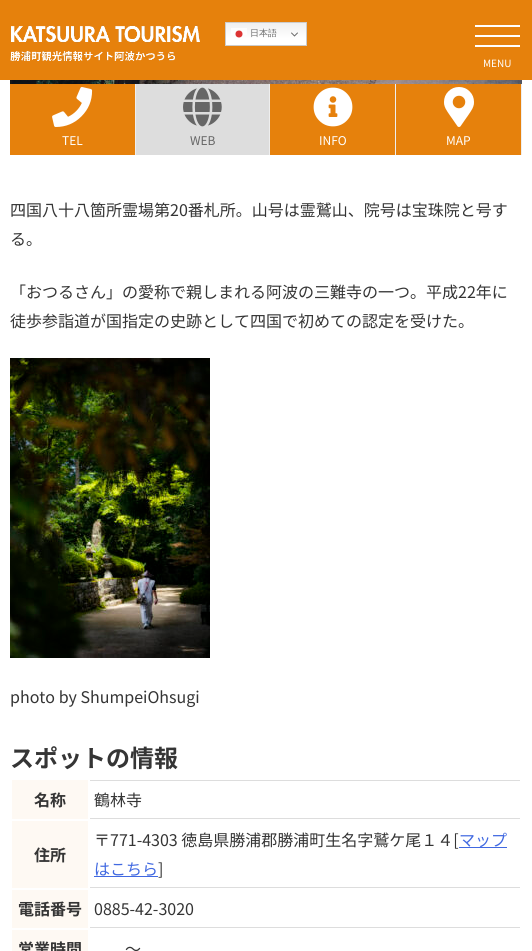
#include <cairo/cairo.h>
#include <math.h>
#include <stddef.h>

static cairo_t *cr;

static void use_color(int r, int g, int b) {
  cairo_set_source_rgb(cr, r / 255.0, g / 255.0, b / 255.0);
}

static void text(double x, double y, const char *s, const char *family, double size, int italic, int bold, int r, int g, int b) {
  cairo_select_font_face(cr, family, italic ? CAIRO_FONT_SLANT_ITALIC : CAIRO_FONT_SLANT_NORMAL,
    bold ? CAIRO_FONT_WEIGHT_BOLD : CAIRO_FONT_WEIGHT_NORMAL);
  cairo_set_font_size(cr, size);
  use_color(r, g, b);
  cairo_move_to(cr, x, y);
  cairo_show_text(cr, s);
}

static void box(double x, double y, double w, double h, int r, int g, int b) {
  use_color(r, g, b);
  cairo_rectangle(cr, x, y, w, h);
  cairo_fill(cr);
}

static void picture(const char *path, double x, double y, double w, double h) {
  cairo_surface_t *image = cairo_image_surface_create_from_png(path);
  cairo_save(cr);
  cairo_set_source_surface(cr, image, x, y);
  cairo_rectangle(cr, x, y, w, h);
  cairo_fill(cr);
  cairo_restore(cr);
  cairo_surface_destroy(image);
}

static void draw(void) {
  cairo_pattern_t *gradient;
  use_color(255, 255, 255);
  cairo_paint(cr);
  box(0, 0, 532, 80, 230, 129, 12);
  gradient = cairo_pattern_create_linear(266, 22, 266, 46);
  cairo_pattern_add_color_stop_rgba(gradient, 0, 0.937, 0.937, 0.937, 1);
  cairo_pattern_add_color_stop_rgba(gradient, 0.7, 1, 1, 1, 1);
  cairo_set_source(cr, gradient);
  cairo_pattern_destroy(gradient);
  cairo_rectangle(cr, 226, 23, 80, 22);
  cairo_fill(cr);
  cairo_rectangle(cr, 225.5, 22.5, 81, 23);
  use_color(204, 204, 204);
  cairo_set_line_width(cr, 1);
  cairo_stroke(cr);
  cairo_set_source_rgba(cr, 1, 1, 1, 0.8);
  cairo_rectangle(cr, 231, 28, 16, 7);
  cairo_fill(cr);
  use_color(220, 51, 51);
  cairo_arc(cr, 239, 34, 3.5, 0, 2 * M_PI);
  cairo_fill(cr);
  picture("img_01.png", 291, 32, 7, 5);
  picture("img_02.png", 10, 25, 190, 36);
  box(475, 25, 45, 2, 255, 255, 255);
  box(475, 35, 45, 2, 255, 255, 255);
  box(475, 45, 45, 2, 255, 255, 255);
  picture("img_03.png", 10, 80, 512, 4);
  box(10, 84, 125, 71, 230, 129, 12);
  box(135, 84, 1, 71, 238, 238, 238);
  picture("img_04.png", 52, 87, 41, 40);
  box(136, 84, 133, 71, 221, 221, 221);
  box(269, 84, 1, 71, 238, 238, 238);
  picture("img_05.png", 183, 87, 39, 40);
  box(270, 84, 125, 71, 230, 129, 12);
  box(395, 84, 1, 71, 238, 238, 238);
  picture("img_06.png", 313, 87, 40, 40);
  box(396, 84, 125, 71, 230, 129, 12);
  box(521, 84, 1, 71, 238, 238, 238);
  picture("img_07.png", 444, 87, 30, 40);
  picture("img_08.png", 10, 358, 200, 300);
  box(12, 780, 76, 39, 254, 249, 243);
  box(90, 780, 430, 1, 221, 221, 221);
  box(90, 818, 430, 1, 221, 221, 221);
  box(12, 821, 76, 67, 254, 249, 243);
  box(90, 887, 430, 1, 221, 221, 221);
  box(459, 847, 48, 1, 65, 105, 225);
  box(94, 876, 64, 1, 65, 105, 225);
  box(12, 890, 76, 38, 254, 249, 243);
  box(90, 927, 430, 1, 221, 221, 221);
  box(12, 930, 76, 21, 254, 249, 243);
  text(250, 36, "日本語", "WenQuanYi Zen Hei Medium", 9, 0, 0, 102, 102, 102);
  text(483, 67, "MENU", "Noto Sans JP", 10, 0, 0, 255, 255, 255);
  text(62, 145, "TEL", "Noto Sans JP", 12, 0, 0, 255, 255, 255);
  text(190, 145, "WEB", "Noto Sans JP", 12, 0, 0, 102, 102, 102);
  text(319, 145, "INFO", "Noto Sans JP", 12, 0, 0, 255, 255, 255);
  text(446, 145, "MAP", "Noto Sans JP", 12, 0, 0, 255, 255, 255);
  text(10, 216, "四国八十八箇所霊場第20番札所。山号は霊鷲山、院号は宝珠院と号す", "Noto Sans JP", 16, 0, 0, 53, 53, 53);
  text(10, 245, "る。", "Noto Sans JP", 16, 0, 0, 53, 53, 53);
  text(10, 298, "「おつるさん」の愛称で親しまれる阿波の三難寺の一つ。平成22年に", "Noto Sans JP", 16, 0, 0, 53, 53, 53);
  text(10, 327, "徒歩参詣道が国指定の史跡として四国で初めての認定を受けた。", "Noto Sans JP", 16, 0, 0, 53, 53, 53);
  text(10, 703, "photo by ShumpeiOhsugi", "Noto Sans JP", 16, 0, 0, 53, 53, 53);
  text(10, 767, "スポットの情報", "Noto Sans JP", 24, 0, 1, 53, 53, 53);
  text(34, 806, "名称", "Noto Sans JP", 16, 0, 1, 53, 53, 53);
  text(94, 806, "鶴林寺", "Noto Sans JP", 16, 0, 0, 53, 53, 53);
  text(34, 861, "住所", "Noto Sans JP", 16, 0, 1, 53, 53, 53);
  text(94, 846, "〒771-4303 徳島県勝浦郡勝浦町生名字鷲ケ尾１４[", "Noto Sans JP", 16, 0, 0, 53, 53, 53);
  text(459, 846, "マップ", "Noto Sans JP", 16, 0, 0, 65, 105, 225);
  text(94, 875, "はこちら", "Noto Sans JP", 16, 0, 0, 65, 105, 225);
  text(158, 875, "]", "Noto Sans JP", 16, 0, 0, 53, 53, 53);
  text(18, 915, "電話番号", "Noto Sans JP", 16, 0, 1, 53, 53, 53);
  text(94, 915, "0885-42-3020", "Noto Sans JP", 16, 0, 0, 53, 53, 53);
  text(18, 955, "営業時間", "Noto Sans JP", 16, 0, 1, 53, 53, 53);
  text(125, 955, "～", "Noto Sans JP", 16, 0, 0, 53, 53, 53);
}

int main(void) {
  cairo_surface_t *surface = cairo_image_surface_create(CAIRO_FORMAT_RGB24, 532, 951);
  cr = cairo_create(surface);
  cairo_font_options_t *options = cairo_font_options_create();
  cairo_font_options_set_hint_metrics(options, CAIRO_HINT_METRICS_OFF);
  cairo_font_options_set_hint_style(options, CAIRO_HINT_STYLE_NONE);
  cairo_set_font_options(cr, options);
  cairo_set_miter_limit(cr, 4);
  draw();
  cairo_surface_write_to_png(surface, "out.png");
  cairo_font_options_destroy(options);
  cairo_destroy(cr);
  cairo_surface_destroy(surface);
  return 0;
}
